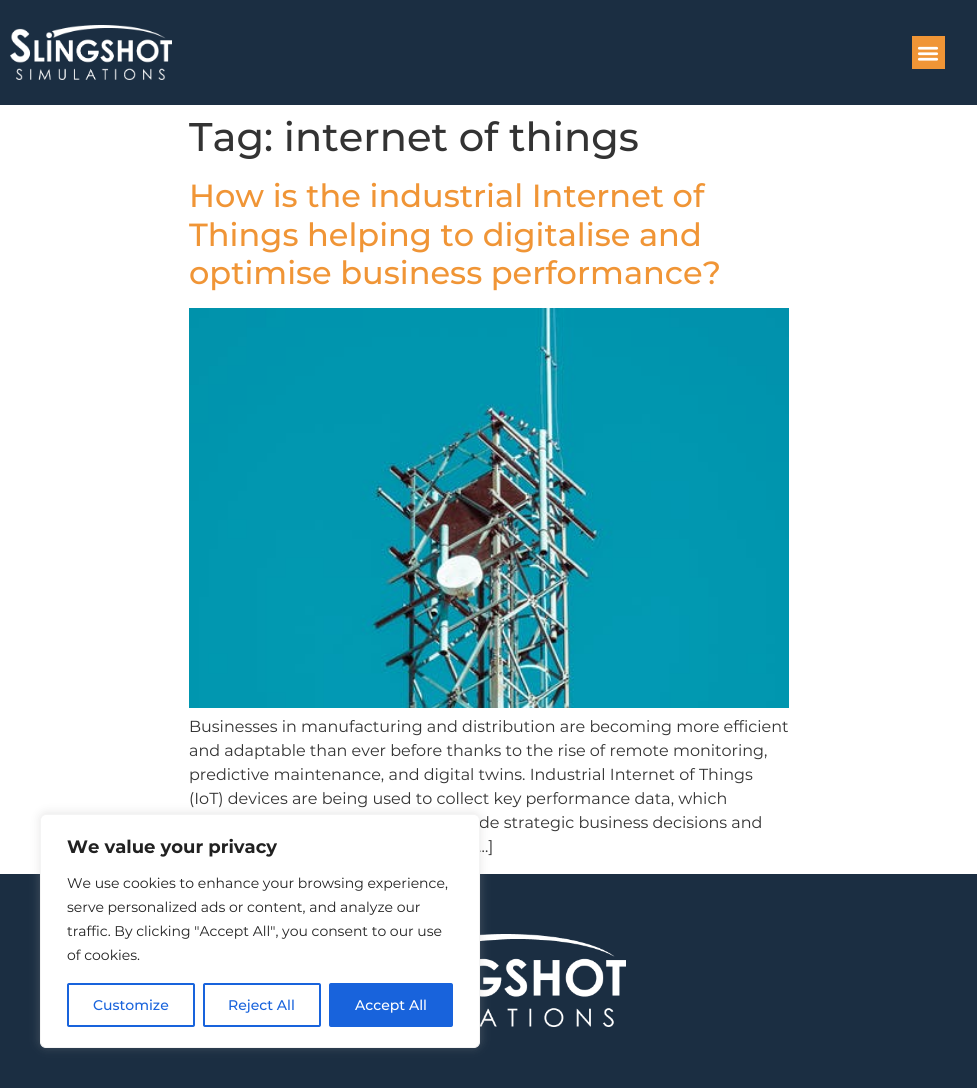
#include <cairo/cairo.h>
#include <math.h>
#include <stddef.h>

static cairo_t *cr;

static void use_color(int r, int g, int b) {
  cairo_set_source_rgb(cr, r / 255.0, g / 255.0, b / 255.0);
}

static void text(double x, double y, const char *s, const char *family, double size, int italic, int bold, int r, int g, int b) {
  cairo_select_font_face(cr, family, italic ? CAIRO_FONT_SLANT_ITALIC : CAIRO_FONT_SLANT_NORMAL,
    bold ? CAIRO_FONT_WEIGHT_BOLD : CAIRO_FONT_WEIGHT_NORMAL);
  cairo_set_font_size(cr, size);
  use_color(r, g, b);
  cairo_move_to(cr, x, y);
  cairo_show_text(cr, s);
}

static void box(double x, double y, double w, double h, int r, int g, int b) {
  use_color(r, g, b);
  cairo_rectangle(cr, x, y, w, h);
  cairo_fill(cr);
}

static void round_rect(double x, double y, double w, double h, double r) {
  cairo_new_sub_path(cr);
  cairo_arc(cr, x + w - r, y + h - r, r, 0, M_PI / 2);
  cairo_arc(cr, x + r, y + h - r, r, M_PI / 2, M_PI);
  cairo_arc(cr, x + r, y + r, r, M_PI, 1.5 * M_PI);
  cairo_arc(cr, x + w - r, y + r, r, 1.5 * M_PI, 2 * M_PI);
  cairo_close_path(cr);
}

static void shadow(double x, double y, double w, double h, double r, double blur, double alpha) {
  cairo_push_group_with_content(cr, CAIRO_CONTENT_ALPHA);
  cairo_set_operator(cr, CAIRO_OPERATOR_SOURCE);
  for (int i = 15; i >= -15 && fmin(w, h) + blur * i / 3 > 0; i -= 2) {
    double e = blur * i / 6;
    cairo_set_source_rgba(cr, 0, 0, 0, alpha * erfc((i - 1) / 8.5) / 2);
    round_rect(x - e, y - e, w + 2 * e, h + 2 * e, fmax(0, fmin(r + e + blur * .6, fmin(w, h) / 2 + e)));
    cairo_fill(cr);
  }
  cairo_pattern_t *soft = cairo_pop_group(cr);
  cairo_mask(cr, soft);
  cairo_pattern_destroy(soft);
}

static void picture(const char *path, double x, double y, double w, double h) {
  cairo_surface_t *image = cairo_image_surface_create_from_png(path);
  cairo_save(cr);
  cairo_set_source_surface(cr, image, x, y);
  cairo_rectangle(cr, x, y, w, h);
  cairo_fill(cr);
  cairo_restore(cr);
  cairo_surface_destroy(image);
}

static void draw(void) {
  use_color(255, 255, 255);
  cairo_paint(cr);
  box(0, 0, 977, 105, 27, 46, 66);
  picture("img_01.png", 10, 25, 162, 55);
  box(912, 36, 33, 33, 240, 149, 54);
  picture("img_02.png", 917, 46, 22, 15);
  picture("img_03.png", 189, 308, 600, 400);
  box(0, 874, 977, 214, 27, 46, 66);
  picture("img_04.png", 480, 934, 146, 93);
  use_color(172, 171, 171);
  shadow(40, 813, 440, 234, 6, 5, 0.3);
  text(189, 151, "Tag: internet of things", "Montserrat Medium", 40, 0, 0, 51, 51, 51);
  text(189, 207, "How is the industrial Internet of", "Montserrat Medium", 32, 0, 0, 240, 149, 54);
  text(189, 246, "Things helping to digitalise and", "Montserrat Medium", 32, 0, 0, 240, 149, 54);
  text(189, 284, "optimise business performance?", "Montserrat Medium", 32, 0, 0, 240, 149, 54);
  text(189, 732, "Businesses in manufacturing and distribution are becoming more efficient", "Montserrat", 16, 0, 0, 51, 51, 51);
  text(189, 756, "and adaptable than ever before thanks to the rise of remote monitoring,", "Montserrat", 16, 0, 0, 51, 51, 51);
  text(189, 780, "predictive maintenance, and digital twins. Industrial Internet of Things", "Montserrat", 16, 0, 0, 51, 51, 51);
  text(189, 804, "(IoT) devices are being used to collect key performance data, which", "Montserrat", 16, 0, 0, 51, 51, 51);
  text(479, 828, "de strategic business decisions and", "Montserrat", 16, 0, 0, 51, 51, 51);
  text(478, 852, "…]", "Montserrat", 16, 0, 0, 51, 51, 51);
  use_color(255, 255, 255);
  round_rect(40.5, 814.5, 439, 233, 5.5);
  cairo_fill_preserve(cr);
  use_color(244, 244, 244);
  cairo_set_line_width(cr, 1);
  cairo_stroke(cr);
  text(67, 853, "We value your privacy", "Montserrat", 18, 0, 1, 33, 33, 33);
  text(67, 888, "We use cookies to enhance your browsing experience,", "Montserrat", 14, 0, 0, 33, 33, 33);
  text(67, 912, "serve personalized ads or content, and analyze our", "Montserrat", 14, 0, 0, 33, 33, 33);
  text(67, 936, "traffic. By clicking \"Accept All\", you consent to our use", "Montserrat", 14, 0, 0, 33, 33, 33);
  text(67, 960, "of cookies.", "Montserrat", 14, 0, 0, 33, 33, 33);
  round_rect(68, 984, 126, 42, 1);
  use_color(24, 99, 220);
  cairo_set_line_width(cr, 2);
  cairo_stroke(cr);
  text(93, 1010, "Customize", "Montserrat Medium", 14, 0, 0, 24, 99, 220);
  round_rect(204, 984, 116, 42, 1);
  cairo_stroke(cr);
  text(228, 1010, "Reject All", "Montserrat Medium", 14, 0, 0, 24, 99, 220);
  round_rect(330, 984, 122, 42, 1);
  cairo_fill_preserve(cr);
  cairo_stroke(cr);
  text(355, 1010, "Accept All", "Montserrat Medium", 14, 0, 0, 255, 255, 255);
}

int main(void) {
  cairo_surface_t *surface = cairo_image_surface_create(CAIRO_FORMAT_RGB24, 977, 1088);
  cr = cairo_create(surface);
  cairo_font_options_t *options = cairo_font_options_create();
  cairo_font_options_set_hint_metrics(options, CAIRO_HINT_METRICS_OFF);
  cairo_font_options_set_hint_style(options, CAIRO_HINT_STYLE_NONE);
  cairo_set_font_options(cr, options);
  cairo_set_miter_limit(cr, 4);
  draw();
  cairo_surface_write_to_png(surface, "out.png");
  cairo_font_options_destroy(options);
  cairo_destroy(cr);
  cairo_surface_destroy(surface);
  return 0;
}
